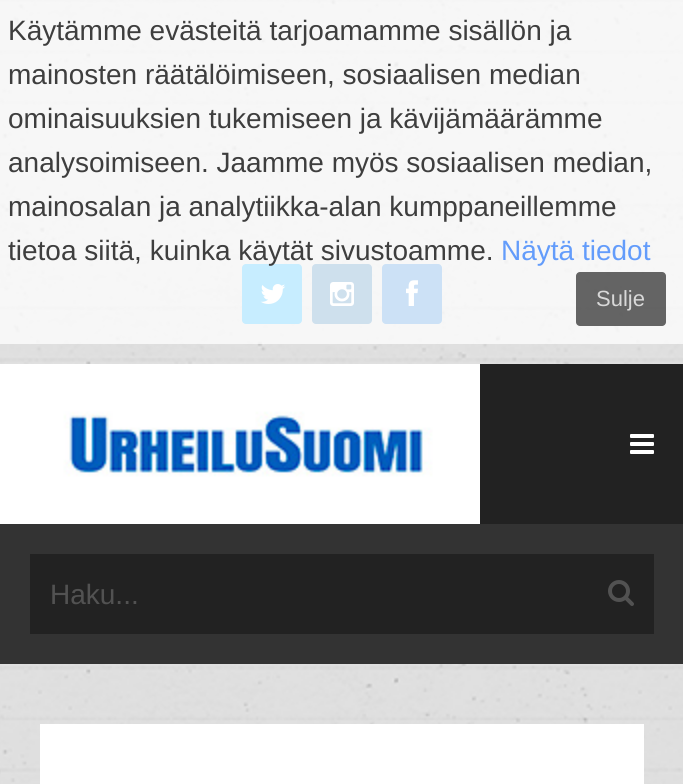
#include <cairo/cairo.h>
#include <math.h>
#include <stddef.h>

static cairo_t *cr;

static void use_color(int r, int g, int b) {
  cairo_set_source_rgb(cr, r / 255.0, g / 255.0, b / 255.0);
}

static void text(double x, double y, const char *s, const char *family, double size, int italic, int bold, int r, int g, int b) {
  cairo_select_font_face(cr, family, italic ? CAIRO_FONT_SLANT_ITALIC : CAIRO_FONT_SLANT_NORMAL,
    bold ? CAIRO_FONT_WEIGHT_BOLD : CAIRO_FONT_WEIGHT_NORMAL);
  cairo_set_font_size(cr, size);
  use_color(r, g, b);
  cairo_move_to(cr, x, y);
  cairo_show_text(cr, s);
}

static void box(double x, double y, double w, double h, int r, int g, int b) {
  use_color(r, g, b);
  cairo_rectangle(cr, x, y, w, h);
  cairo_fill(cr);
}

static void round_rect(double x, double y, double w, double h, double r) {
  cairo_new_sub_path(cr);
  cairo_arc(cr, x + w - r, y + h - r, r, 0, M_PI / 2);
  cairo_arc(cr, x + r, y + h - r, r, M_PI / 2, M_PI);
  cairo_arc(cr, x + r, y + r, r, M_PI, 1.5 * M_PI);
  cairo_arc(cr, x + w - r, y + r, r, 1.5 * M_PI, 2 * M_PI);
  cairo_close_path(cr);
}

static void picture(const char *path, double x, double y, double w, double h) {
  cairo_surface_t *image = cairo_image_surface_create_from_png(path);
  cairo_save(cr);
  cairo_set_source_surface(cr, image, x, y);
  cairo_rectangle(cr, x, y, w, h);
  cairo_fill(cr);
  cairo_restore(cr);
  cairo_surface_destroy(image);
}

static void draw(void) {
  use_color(255, 255, 255);
  cairo_paint(cr);
  picture("img_01.png", 0, 0, 683, 784);
  use_color(32, 182, 255);
  round_rect(242, 264, 60, 60, 4);
  cairo_fill(cr);
  picture("img_02.png", 260, 284, 26, 20);
  use_color(59, 130, 185);
  round_rect(312, 264, 60, 60, 4);
  cairo_fill(cr);
  picture("img_03.png", 330, 282, 24, 24);
  use_color(50, 137, 218);
  round_rect(382, 264, 60, 60, 4);
  cairo_fill(cr);
  picture("img_04.png", 406, 280, 12, 26);
  cairo_set_source_rgba(cr, 1, 1, 1, 0.75);
  cairo_rectangle(cr, 0, 0, 683, 344);
  cairo_fill(cr);
  cairo_set_source_rgba(cr, 0.2, 0.2, 0.2, 0.75);
  round_rect(576, 272, 90, 54, 4);
  cairo_fill(cr);
  box(0, 524, 683, 140, 51, 51, 51);
  picture("img_05.png", 0, 364, 480, 160);
  box(480, 364, 203, 160, 34, 34, 34);
  picture("img_06.png", 630, 434, 24, 20);
  box(30, 554, 624, 80, 34, 34, 34);
  picture("img_07.png", 608, 580, 26, 26);
  box(40, 724, 604, 60, 255, 255, 255);
  text(8, 40, "Käytämme evästeitä tarjoamamme sisällön ja", "Liberation Sans", 28, 0, 0, 62, 62, 62);
  text(8, 84, "mainosten räätälöimiseen, sosiaalisen median", "Liberation Sans", 28, 0, 0, 62, 62, 62);
  text(8, 128, "ominaisuuksien tukemiseen ja kävijämäärämme", "Liberation Sans", 28, 0, 0, 62, 62, 62);
  text(8, 172, "analysoimiseen. Jaamme myös sosiaalisen median,", "Liberation Sans", 28, 0, 0, 62, 62, 62);
  text(8, 216, "mainosalan ja analytiikka-alan kumppaneillemme", "Liberation Sans", 28, 0, 0, 62, 62, 62);
  text(8, 260, "tietoa siitä, kuinka käytät sivustoamme.", "Liberation Sans", 28, 0, 0, 62, 62, 62);
  text(501, 260, "Näytä tiedot", "Liberation Sans", 28, 0, 0, 99, 156, 251);
  text(596, 306, "Sulje", "Liberation Sans", 22, 0, 0, 216, 216, 216);
  text(50, 604, "Haku...", "Liberation Sans", 28, 0, 0, 82, 82, 82);
}

int main(void) {
  cairo_surface_t *surface = cairo_image_surface_create(CAIRO_FORMAT_RGB24, 683, 784);
  cr = cairo_create(surface);
  cairo_font_options_t *options = cairo_font_options_create();
  cairo_font_options_set_hint_metrics(options, CAIRO_HINT_METRICS_OFF);
  cairo_font_options_set_hint_style(options, CAIRO_HINT_STYLE_NONE);
  cairo_set_font_options(cr, options);
  cairo_set_miter_limit(cr, 4);
  draw();
  cairo_surface_write_to_png(surface, "out.png");
  cairo_font_options_destroy(options);
  cairo_destroy(cr);
  cairo_surface_destroy(surface);
  return 0;
}
